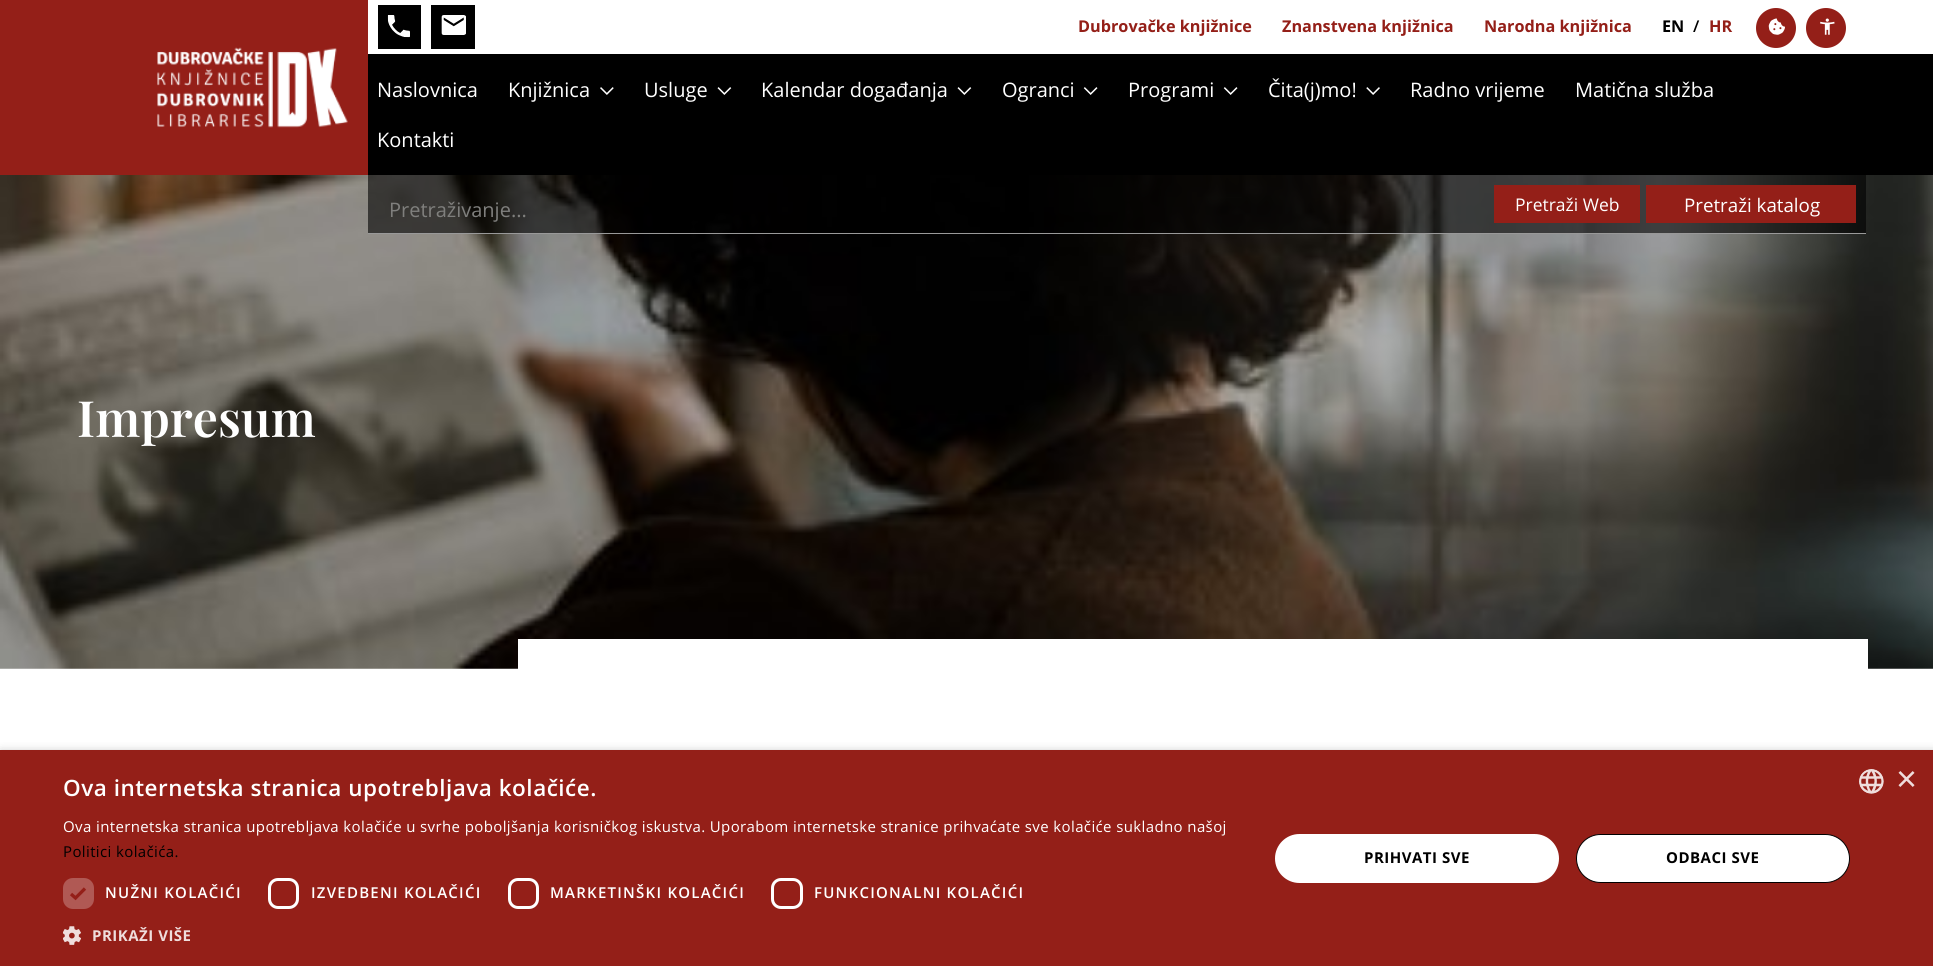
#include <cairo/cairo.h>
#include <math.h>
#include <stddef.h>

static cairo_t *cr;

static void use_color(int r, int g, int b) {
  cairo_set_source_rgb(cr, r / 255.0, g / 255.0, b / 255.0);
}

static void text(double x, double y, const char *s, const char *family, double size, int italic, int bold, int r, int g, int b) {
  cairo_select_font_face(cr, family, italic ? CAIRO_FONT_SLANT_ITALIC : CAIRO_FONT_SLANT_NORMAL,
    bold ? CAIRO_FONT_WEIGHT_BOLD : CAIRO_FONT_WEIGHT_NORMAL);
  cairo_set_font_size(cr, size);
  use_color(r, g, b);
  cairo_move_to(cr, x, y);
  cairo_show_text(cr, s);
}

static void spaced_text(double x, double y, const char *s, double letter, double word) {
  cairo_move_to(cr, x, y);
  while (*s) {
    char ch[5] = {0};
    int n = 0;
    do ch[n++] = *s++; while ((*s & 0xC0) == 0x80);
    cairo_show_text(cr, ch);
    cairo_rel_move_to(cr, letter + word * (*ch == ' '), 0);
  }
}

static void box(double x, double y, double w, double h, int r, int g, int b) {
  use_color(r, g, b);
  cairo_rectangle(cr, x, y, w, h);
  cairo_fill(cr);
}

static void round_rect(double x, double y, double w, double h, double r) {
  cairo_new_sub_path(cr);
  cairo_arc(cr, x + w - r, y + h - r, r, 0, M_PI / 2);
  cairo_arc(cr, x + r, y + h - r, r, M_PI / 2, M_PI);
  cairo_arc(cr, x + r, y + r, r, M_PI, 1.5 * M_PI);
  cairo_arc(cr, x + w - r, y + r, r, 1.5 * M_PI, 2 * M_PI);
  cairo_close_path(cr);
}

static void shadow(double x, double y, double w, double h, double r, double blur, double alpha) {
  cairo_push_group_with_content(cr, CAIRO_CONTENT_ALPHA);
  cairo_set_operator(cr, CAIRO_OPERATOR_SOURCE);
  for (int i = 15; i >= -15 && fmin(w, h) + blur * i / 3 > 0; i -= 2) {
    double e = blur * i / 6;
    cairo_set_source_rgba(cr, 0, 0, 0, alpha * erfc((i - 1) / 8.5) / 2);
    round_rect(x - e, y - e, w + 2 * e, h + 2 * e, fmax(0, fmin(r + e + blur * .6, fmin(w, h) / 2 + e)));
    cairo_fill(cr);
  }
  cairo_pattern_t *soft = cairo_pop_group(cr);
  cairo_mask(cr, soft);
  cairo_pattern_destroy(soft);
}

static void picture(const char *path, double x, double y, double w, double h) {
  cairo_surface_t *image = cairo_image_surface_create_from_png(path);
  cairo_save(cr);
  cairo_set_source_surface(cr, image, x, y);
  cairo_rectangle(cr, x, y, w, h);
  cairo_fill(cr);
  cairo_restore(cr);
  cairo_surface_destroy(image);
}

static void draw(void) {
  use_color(255, 255, 255);
  cairo_paint(cr);
  box(368, 54, 1565, 121, 0, 0, 0);
  box(0, 0, 368, 175, 148, 31, 24);
  picture("img_01.png", 157, 47, 191, 81);
  box(378, 5, 43, 44, 0, 0, 0);
  picture("img_02.png", 387, 15, 23, 23);
  box(431, 5, 44, 44, 0, 0, 0);
  picture("img_03.png", 441, 15, 25, 20);
  use_color(148, 31, 24);
  cairo_arc(cr, 1776, 28, 20, 0, 2 * M_PI);
  cairo_fill(cr);
  picture("img_04.png", 1768, 18, 17, 17);
  cairo_arc(cr, 1826, 28, 20, 0, 2 * M_PI);
  cairo_fill(cr);
  picture("img_05.png", 1820, 18, 15, 17);
  picture("img_06.png", 600, 87, 14, 8);
  picture("img_07.png", 717, 87, 15, 8);
  picture("img_07.png", 957, 87, 15, 8);
  picture("img_08.png", 1083, 87, 15, 8);
  picture("img_08.png", 1223, 87, 15, 8);
  picture("img_09.png", 1366, 87, 14, 8);
  picture("img_10.png", 0, 175, 1933, 494);
  cairo_set_source_rgba(cr, 0, 0, 0, 0.6);
  cairo_rectangle(cr, 368, 175, 1498, 58);
  cairo_fill(cr);
  box(368, 233, 1498, 1, 153, 153, 153);
  box(1494, 185, 146, 38, 148, 31, 24);
  box(1646, 185, 210, 38, 148, 31, 24);
  box(518, 639, 1350, 30, 255, 255, 255);
  use_color(0, 0, 0);
  shadow(1, 753, 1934, 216, 0, 5, 0.35);
  box(0, 750, 1933, 216, 148, 31, 24);
  use_color(176, 89, 84);
  round_rect(63, 878, 31, 31, 10);
  cairo_fill(cr);
  cairo_new_path(cr);
  cairo_move_to(cr, 71, 894);
  cairo_line_to(cr, 75.5, 898);
  cairo_line_to(cr, 85, 888.5);
  use_color(148, 31, 24);
  cairo_set_line_width(cr, 3.3);
  cairo_stroke(cr);
  round_rect(269.5, 879.5, 28, 28, 8.5);
  use_color(255, 255, 255);
  cairo_set_line_width(cr, 3);
  cairo_stroke(cr);
  round_rect(509.5, 879.5, 28, 28, 8.5);
  cairo_stroke(cr);
  round_rect(772.5, 879.5, 29, 28, 8.5);
  cairo_stroke(cr);
  picture("img_11.png", 63, 926, 18, 19);
  round_rect(1275, 834, 284, 49, 24.5);
  cairo_fill(cr);
  round_rect(1576.5, 834.5, 273, 48, 24);
  cairo_fill_preserve(cr);
  use_color(0, 0, 0);
  cairo_set_line_width(cr, 1);
  cairo_stroke(cr);
  picture("img_12.png", 1859, 769, 25, 25);
  text(1078, 32, "Dubrovačke knjižnice", "Open Sans", 16.25, 0, 1, 148, 31, 24);
  text(1282, 32, "Znanstvena knjižnica", "Open Sans", 16.25, 0, 1, 148, 31, 24);
  text(1484, 32, "Narodna knjižnica", "Open Sans", 16.25, 0, 1, 148, 31, 24);
  text(1662, 32, "EN", "Open Sans", 16.25, 0, 1, 0, 0, 0);
  text(1693, 32, "/", "Open Sans SemiBold", 16.25, 0, 0, 0, 0, 0);
  text(1709, 32, "HR", "Open Sans", 16.25, 0, 1, 148, 31, 24);
  text(377, 97, "Naslovnica", "Open Sans", 20, 0, 0, 255, 255, 255);
  text(508, 97, "Knjižnica", "Open Sans", 20, 0, 0, 255, 255, 255);
  text(644, 97, "Usluge", "Open Sans", 20, 0, 0, 255, 255, 255);
  text(761, 97, "Kalendar događanja", "Open Sans", 20, 0, 0, 255, 255, 255);
  text(1002, 97, "Ogranci", "Open Sans", 20, 0, 0, 255, 255, 255);
  text(1128, 97, "Programi", "Open Sans", 20, 0, 0, 255, 255, 255);
  text(1268, 97, "Čita(j)mo!", "Open Sans", 20, 0, 0, 255, 255, 255);
  text(1410, 97, "Radno vrijeme", "Open Sans", 20, 0, 0, 255, 255, 255);
  text(1575, 97, "Matična služba", "Open Sans", 20, 0, 0, 255, 255, 255);
  text(377, 147, "Kontakti", "Open Sans", 20, 0, 0, 255, 255, 255);
  text(389, 217, "Pretraživanje...", "Open Sans", 20, 0, 0, 127, 127, 125);
  text(1515, 211, "Pretraži Web", "Open Sans", 17.5, 0, 0, 255, 255, 255);
  text(1684, 212, "Pretraži katalog", "Open Sans", 18.75, 0, 0, 255, 255, 255);
  text(77, 437, "Impresum", "Playfair Display SemiBold", 50, 0, 0, 255, 255, 255);
  cairo_select_font_face(cr, "Open Sans SemiBold", CAIRO_FONT_SLANT_NORMAL, CAIRO_FONT_WEIGHT_NORMAL);
  cairo_set_font_size(cr, 22.5);
  spaced_text(63, 796, "Ova internetska stranica upotrebljava kolačiće.", 0.5, 0);
  cairo_select_font_face(cr, "Open Sans", CAIRO_FONT_SLANT_NORMAL, CAIRO_FONT_WEIGHT_NORMAL);
  cairo_set_font_size(cr, 15);
  spaced_text(63, 832, "Ova internetska stranica upotrebljava kolačiće u svrhe poboljšanja korisničkog iskustva. Uporabom internetske stranice prihvaćate sve kolačiće sukladno našoj", 0.38, 0);
  use_color(0, 0, 0);
  spaced_text(63, 857, "Politici kolačića.", 0.38, 0);
  cairo_select_font_face(cr, "Open Sans SemiBold", CAIRO_FONT_SLANT_NORMAL, CAIRO_FONT_WEIGHT_NORMAL);
  use_color(255, 255, 255);
  spaced_text(105, 898, "NUŽNI KOLAČIĆI", 1.25, 0);
  spaced_text(311, 898, "IZVEDBENI KOLAČIĆI", 1.25, 0);
  spaced_text(550, 898, "MARKETINŠKI KOLAČIĆI", 1.25, 0);
  spaced_text(814, 898, "FUNKCIONALNI KOLAČIĆI", 1.25, 0);
  cairo_select_font_face(cr, "Open Sans", CAIRO_FONT_SLANT_NORMAL, CAIRO_FONT_WEIGHT_BOLD);
  use_color(239, 221, 220);
  spaced_text(92, 941, "PRIKAŽI VIŠE", 0.5, 0);
  use_color(0, 0, 0);
  spaced_text(1364, 863, "PRIHVATI SVE", 0.5, 0);
  spaced_text(1666, 863, "ODBACI SVE", 0.5, 0);
  text(1896, 791, "×", "Liberation Sans", 36, 0, 0, 239, 221, 220);
}

int main(void) {
  cairo_surface_t *surface = cairo_image_surface_create(CAIRO_FORMAT_RGB24, 1933, 966);
  cr = cairo_create(surface);
  cairo_font_options_t *options = cairo_font_options_create();
  cairo_font_options_set_hint_metrics(options, CAIRO_HINT_METRICS_OFF);
  cairo_font_options_set_hint_style(options, CAIRO_HINT_STYLE_NONE);
  cairo_set_font_options(cr, options);
  cairo_set_miter_limit(cr, 4);
  draw();
  cairo_surface_write_to_png(surface, "out.png");
  cairo_font_options_destroy(options);
  cairo_destroy(cr);
  cairo_surface_destroy(surface);
  return 0;
}
